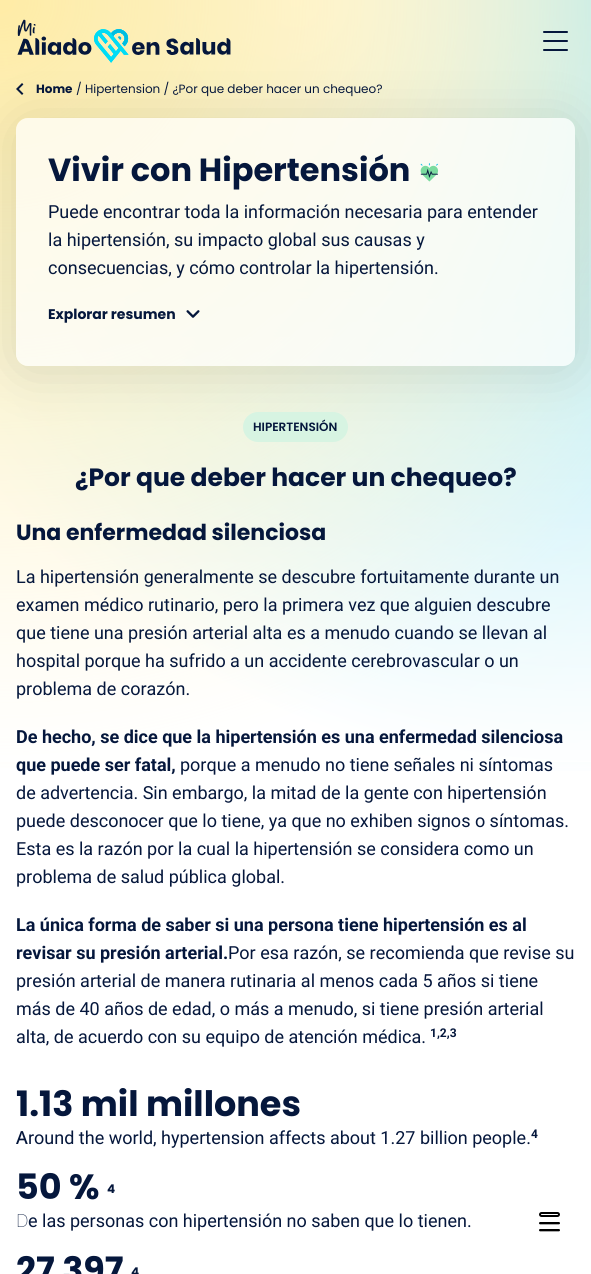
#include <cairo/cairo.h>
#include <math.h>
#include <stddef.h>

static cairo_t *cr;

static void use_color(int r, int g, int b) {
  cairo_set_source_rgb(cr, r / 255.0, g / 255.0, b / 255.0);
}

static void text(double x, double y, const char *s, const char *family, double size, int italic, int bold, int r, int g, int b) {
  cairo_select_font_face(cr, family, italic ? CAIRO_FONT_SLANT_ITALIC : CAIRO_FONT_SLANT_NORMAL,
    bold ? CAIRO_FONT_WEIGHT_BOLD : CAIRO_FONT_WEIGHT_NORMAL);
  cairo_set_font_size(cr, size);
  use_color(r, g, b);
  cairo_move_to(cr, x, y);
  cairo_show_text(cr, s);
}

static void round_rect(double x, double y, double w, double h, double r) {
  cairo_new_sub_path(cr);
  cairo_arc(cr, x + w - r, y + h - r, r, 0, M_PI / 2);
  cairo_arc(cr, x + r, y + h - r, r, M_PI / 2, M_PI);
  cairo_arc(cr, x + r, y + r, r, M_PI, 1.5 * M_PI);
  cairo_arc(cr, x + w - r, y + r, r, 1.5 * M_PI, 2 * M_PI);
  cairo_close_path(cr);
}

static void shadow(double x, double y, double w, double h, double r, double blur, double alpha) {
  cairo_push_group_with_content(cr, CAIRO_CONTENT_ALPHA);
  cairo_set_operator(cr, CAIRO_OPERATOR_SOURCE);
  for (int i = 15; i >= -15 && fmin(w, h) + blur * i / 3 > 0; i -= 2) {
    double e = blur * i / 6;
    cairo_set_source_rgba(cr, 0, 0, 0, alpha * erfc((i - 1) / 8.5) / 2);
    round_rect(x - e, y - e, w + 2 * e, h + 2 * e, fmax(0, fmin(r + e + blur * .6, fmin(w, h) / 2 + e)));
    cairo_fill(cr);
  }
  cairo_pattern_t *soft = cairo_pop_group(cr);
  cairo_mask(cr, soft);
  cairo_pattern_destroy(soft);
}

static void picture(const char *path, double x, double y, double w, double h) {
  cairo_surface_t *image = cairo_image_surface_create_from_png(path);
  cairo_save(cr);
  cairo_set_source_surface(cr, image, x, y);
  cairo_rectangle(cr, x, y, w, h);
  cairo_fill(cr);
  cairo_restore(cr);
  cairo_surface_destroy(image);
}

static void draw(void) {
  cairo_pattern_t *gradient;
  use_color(255, 255, 255);
  cairo_paint(cr);
  gradient = cairo_pattern_create_radial(591, 0, 0, 591, 0, 1556);
  cairo_pattern_add_color_stop_rgba(gradient, 0, 0, 0.737, 0.878, 1);
  cairo_pattern_add_color_stop_rgba(gradient, 0.5, 1, 1, 1, 1);
  cairo_pattern_add_color_stop_rgba(gradient, 1, 1, 1, 1, 1);
  cairo_set_source(cr, gradient);
  cairo_pattern_destroy(gradient);
  cairo_rectangle(cr, 0, 0, 591, 771);
  cairo_fill(cr);
  gradient = cairo_pattern_create_radial(296, 0, 0, 296, 0, 1469);
  cairo_pattern_add_color_stop_rgba(gradient, 0, 1, 1, 1, 1);
  cairo_pattern_add_color_stop_rgba(gradient, 0.5, 1, 1, 1, 0);
  cairo_pattern_add_color_stop_rgba(gradient, 1, 1, 1, 1, 1);
  cairo_set_source(cr, gradient);
  cairo_pattern_destroy(gradient);
  cairo_rectangle(cr, 0, 0, 591, 662);
  cairo_fill(cr);
  gradient = cairo_pattern_create_radial(0, 0, 0, 0, 0, 1556);
  cairo_pattern_add_color_stop_rgba(gradient, 0, 1, 0.875, 0.42, 1);
  cairo_pattern_add_color_stop_rgba(gradient, 0.5, 1, 0.875, 0.42, 0);
  cairo_pattern_add_color_stop_rgba(gradient, 0.5, 1, 1, 1, 0);
  cairo_pattern_add_color_stop_rgba(gradient, 1, 1, 1, 1, 1);
  cairo_set_source(cr, gradient);
  cairo_pattern_destroy(gradient);
  cairo_rectangle(cr, 0, 0, 591, 768);
  cairo_fill(cr);
  gradient = cairo_pattern_create_linear(296, 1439, 295, 0);
  cairo_pattern_add_color_stop_rgba(gradient, 0, 1, 1, 1, 1);
  cairo_pattern_add_color_stop_rgba(gradient, 0.8, 1, 1, 1, 0.4);
  cairo_set_source(cr, gradient);
  cairo_pattern_destroy(gradient);
  cairo_rectangle(cr, 0, 0, 591, 762);
  cairo_fill(cr);
  cairo_save(cr);
  cairo_set_fill_rule(cr, CAIRO_FILL_RULE_EVEN_ODD);
  cairo_new_path(cr);
  cairo_move_to(cr, 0, 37);
  cairo_line_to(cr, 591, 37);
  cairo_line_to(cr, 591, 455);
  cairo_line_to(cr, 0, 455);
  cairo_close_path(cr);
  cairo_move_to(cr, 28, 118);
  cairo_line_to(cr, 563, 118);
  cairo_curve_to(cr, 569.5, 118, 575, 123.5, 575, 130);
  cairo_line_to(cr, 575, 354);
  cairo_curve_to(cr, 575, 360.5, 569.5, 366, 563, 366);
  cairo_line_to(cr, 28, 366);
  cairo_curve_to(cr, 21.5, 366, 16, 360.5, 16, 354);
  cairo_line_to(cr, 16, 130);
  cairo_curve_to(cr, 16, 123.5, 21.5, 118, 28, 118);
  cairo_close_path(cr);
  cairo_clip(cr);
  use_color(0, 0, 0);
  shadow(16, 122, 559, 248, 12, 28, 0.12);
  cairo_restore(cr);
  picture("img_01.png", 17, 19, 214, 44);
  use_color(5, 23, 60);
  round_rect(543, 31, 25, 2, 1);
  cairo_fill(cr);
  round_rect(543, 40, 25, 2, 1);
  cairo_fill(cr);
  round_rect(543, 49, 25, 2, 1);
  cairo_fill(cr);
  picture("img_02.png", 16, 83, 8, 12);
  cairo_set_source_rgba(cr, 1, 1, 1, 0.7);
  round_rect(16, 118, 559, 248, 12);
  cairo_fill(cr);
  picture("img_03.png", 420, 163, 19, 19);
  picture("img_04.png", 186, 310, 14, 8);
  use_color(215, 244, 226);
  round_rect(243, 412, 105, 30, 15);
  cairo_fill(cr);
  picture("img_05.png", 539, 1212, 21, 20);
  text(36, 93, "Home", "Poppins", 12, 0, 1, 5, 23, 60);
  text(76, 93, "/ Hipertension / ¿Por que deber hacer un chequeo?", "Poppins", 12, 0, 0, 5, 23, 60);
  text(48, 181, "Vivir con Hipertensión", "Poppins", 32, 0, 1, 5, 23, 60);
  text(48, 218, "Puede encontrar toda la información necesaria para entender", "Roboto", 18, 0, 0, 5, 23, 60);
  text(48, 246, "la hipertensión, su impacto global sus causas y", "Roboto", 18, 0, 0, 5, 23, 60);
  text(48, 274, "consecuencias, y cómo controlar la hipertensión.", "Roboto", 18, 0, 0, 5, 23, 60);
  text(48, 319, "Explorar resumen", "Poppins", 14, 0, 1, 5, 23, 60);
  text(253, 431, "HIPERTENSIÓN", "Poppins SemiBold", 12, 0, 0, 5, 23, 60);
  text(75, 486, "¿Por que deber hacer un chequeo?", "Poppins", 25, 0, 1, 5, 23, 60);
  text(16, 540, "Una enfermedad silenciosa", "Poppins", 22, 0, 1, 5, 23, 60);
  text(16, 583, "La hipertensión generalmente se descubre fortuitamente durante un", "Roboto", 18, 0, 0, 5, 23, 60);
  text(16, 611, "examen médico rutinario, pero la primera vez que alguien descubre", "Roboto", 18, 0, 0, 5, 23, 60);
  text(16, 639, "que tiene una presión arterial alta es a menudo cuando se llevan al", "Roboto", 18, 0, 0, 5, 23, 60);
  text(16, 667, "hospital porque ha sufrido a un accidente cerebrovascular o un", "Roboto", 18, 0, 0, 5, 23, 60);
  text(16, 695, "problema de corazón.", "Roboto", 18, 0, 0, 5, 23, 60);
  text(16, 743, "De hecho, se dice que la hipertensión es una enfermedad silenciosa", "Roboto", 18, 0, 1, 5, 23, 60);
  text(16, 771, "que puede ser fatal,", "Roboto", 18, 0, 1, 5, 23, 60);
  text(180, 771, "porque a menudo no tiene señales ni síntomas", "Roboto", 18, 0, 0, 5, 23, 60);
  text(16, 799, "de advertencia. Sin embargo, la mitad de la gente con hipertensión", "Roboto", 18, 0, 0, 5, 23, 60);
  text(16, 827, "puede desconocer que lo tiene, ya que no exhiben signos o síntomas.", "Roboto", 18, 0, 0, 5, 23, 60);
  text(16, 855, "Esta es la razón por la cual la hipertensión se considera como un", "Roboto", 18, 0, 0, 5, 23, 60);
  text(16, 883, "problema de salud pública global.", "Roboto", 18, 0, 0, 5, 23, 60);
  text(16, 931, "La única forma de saber si una persona tiene hipertensión es al", "Roboto", 18, 0, 1, 5, 23, 60);
  text(16, 959, "revisar su presión arterial.", "Roboto", 18, 0, 1, 5, 23, 60);
  text(228, 959, "Por esa razón, se recomienda que revise su", "Roboto", 18, 0, 0, 5, 23, 60);
  text(16, 987, "presión arterial de manera rutinaria al menos cada 5 años si tiene", "Roboto", 18, 0, 0, 5, 23, 60);
  text(16, 1015, "más de 40 años de edad, o más a menudo, si tiene presión arterial", "Roboto", 18, 0, 0, 5, 23, 60);
  text(16, 1043, "alta, de acuerdo con su equipo de atención médica.", "Roboto", 18, 0, 0, 5, 23, 60);
  text(430, 1037, "1,2,3", "Roboto", 12, 0, 1, 5, 23, 60);
  text(16, 1116, "1.13 mil millones", "Poppins", 35, 0, 1, 5, 23, 60);
  text(16, 1144, "A", "Noto Sans Medium", 18, 0, 0, 5, 23, 60);
  text(28, 1144, "round the world, hypertension affects about 1.27 billion people.", "Roboto", 18, 0, 0, 5, 23, 60);
  text(531, 1138, "4", "Roboto", 12, 0, 1, 5, 23, 60);
  text(16, 1199, "50 %", "Poppins", 35, 0, 1, 5, 23, 60);
  text(107, 1193, "4", "Poppins", 12, 0, 1, 5, 23, 60);
  text(16, 1227, "D", "Noto Sans Thin", 18, 0, 0, 5, 23, 60);
  text(28, 1227, "e las personas con hipertensión no saben que lo tienen.", "Roboto", 18, 0, 0, 5, 23, 60);
  text(16, 1282, "27 397", "Poppins", 35, 0, 1, 5, 23, 60);
  text(131, 1276, "4", "Poppins", 12, 0, 1, 5, 23, 60);
}

int main(void) {
  cairo_surface_t *surface = cairo_image_surface_create(CAIRO_FORMAT_RGB24, 591, 1274);
  cr = cairo_create(surface);
  cairo_font_options_t *options = cairo_font_options_create();
  cairo_font_options_set_hint_metrics(options, CAIRO_HINT_METRICS_OFF);
  cairo_font_options_set_hint_style(options, CAIRO_HINT_STYLE_NONE);
  cairo_set_font_options(cr, options);
  cairo_set_miter_limit(cr, 4);
  draw();
  cairo_surface_write_to_png(surface, "out.png");
  cairo_font_options_destroy(options);
  cairo_destroy(cr);
  cairo_surface_destroy(surface);
  return 0;
}
